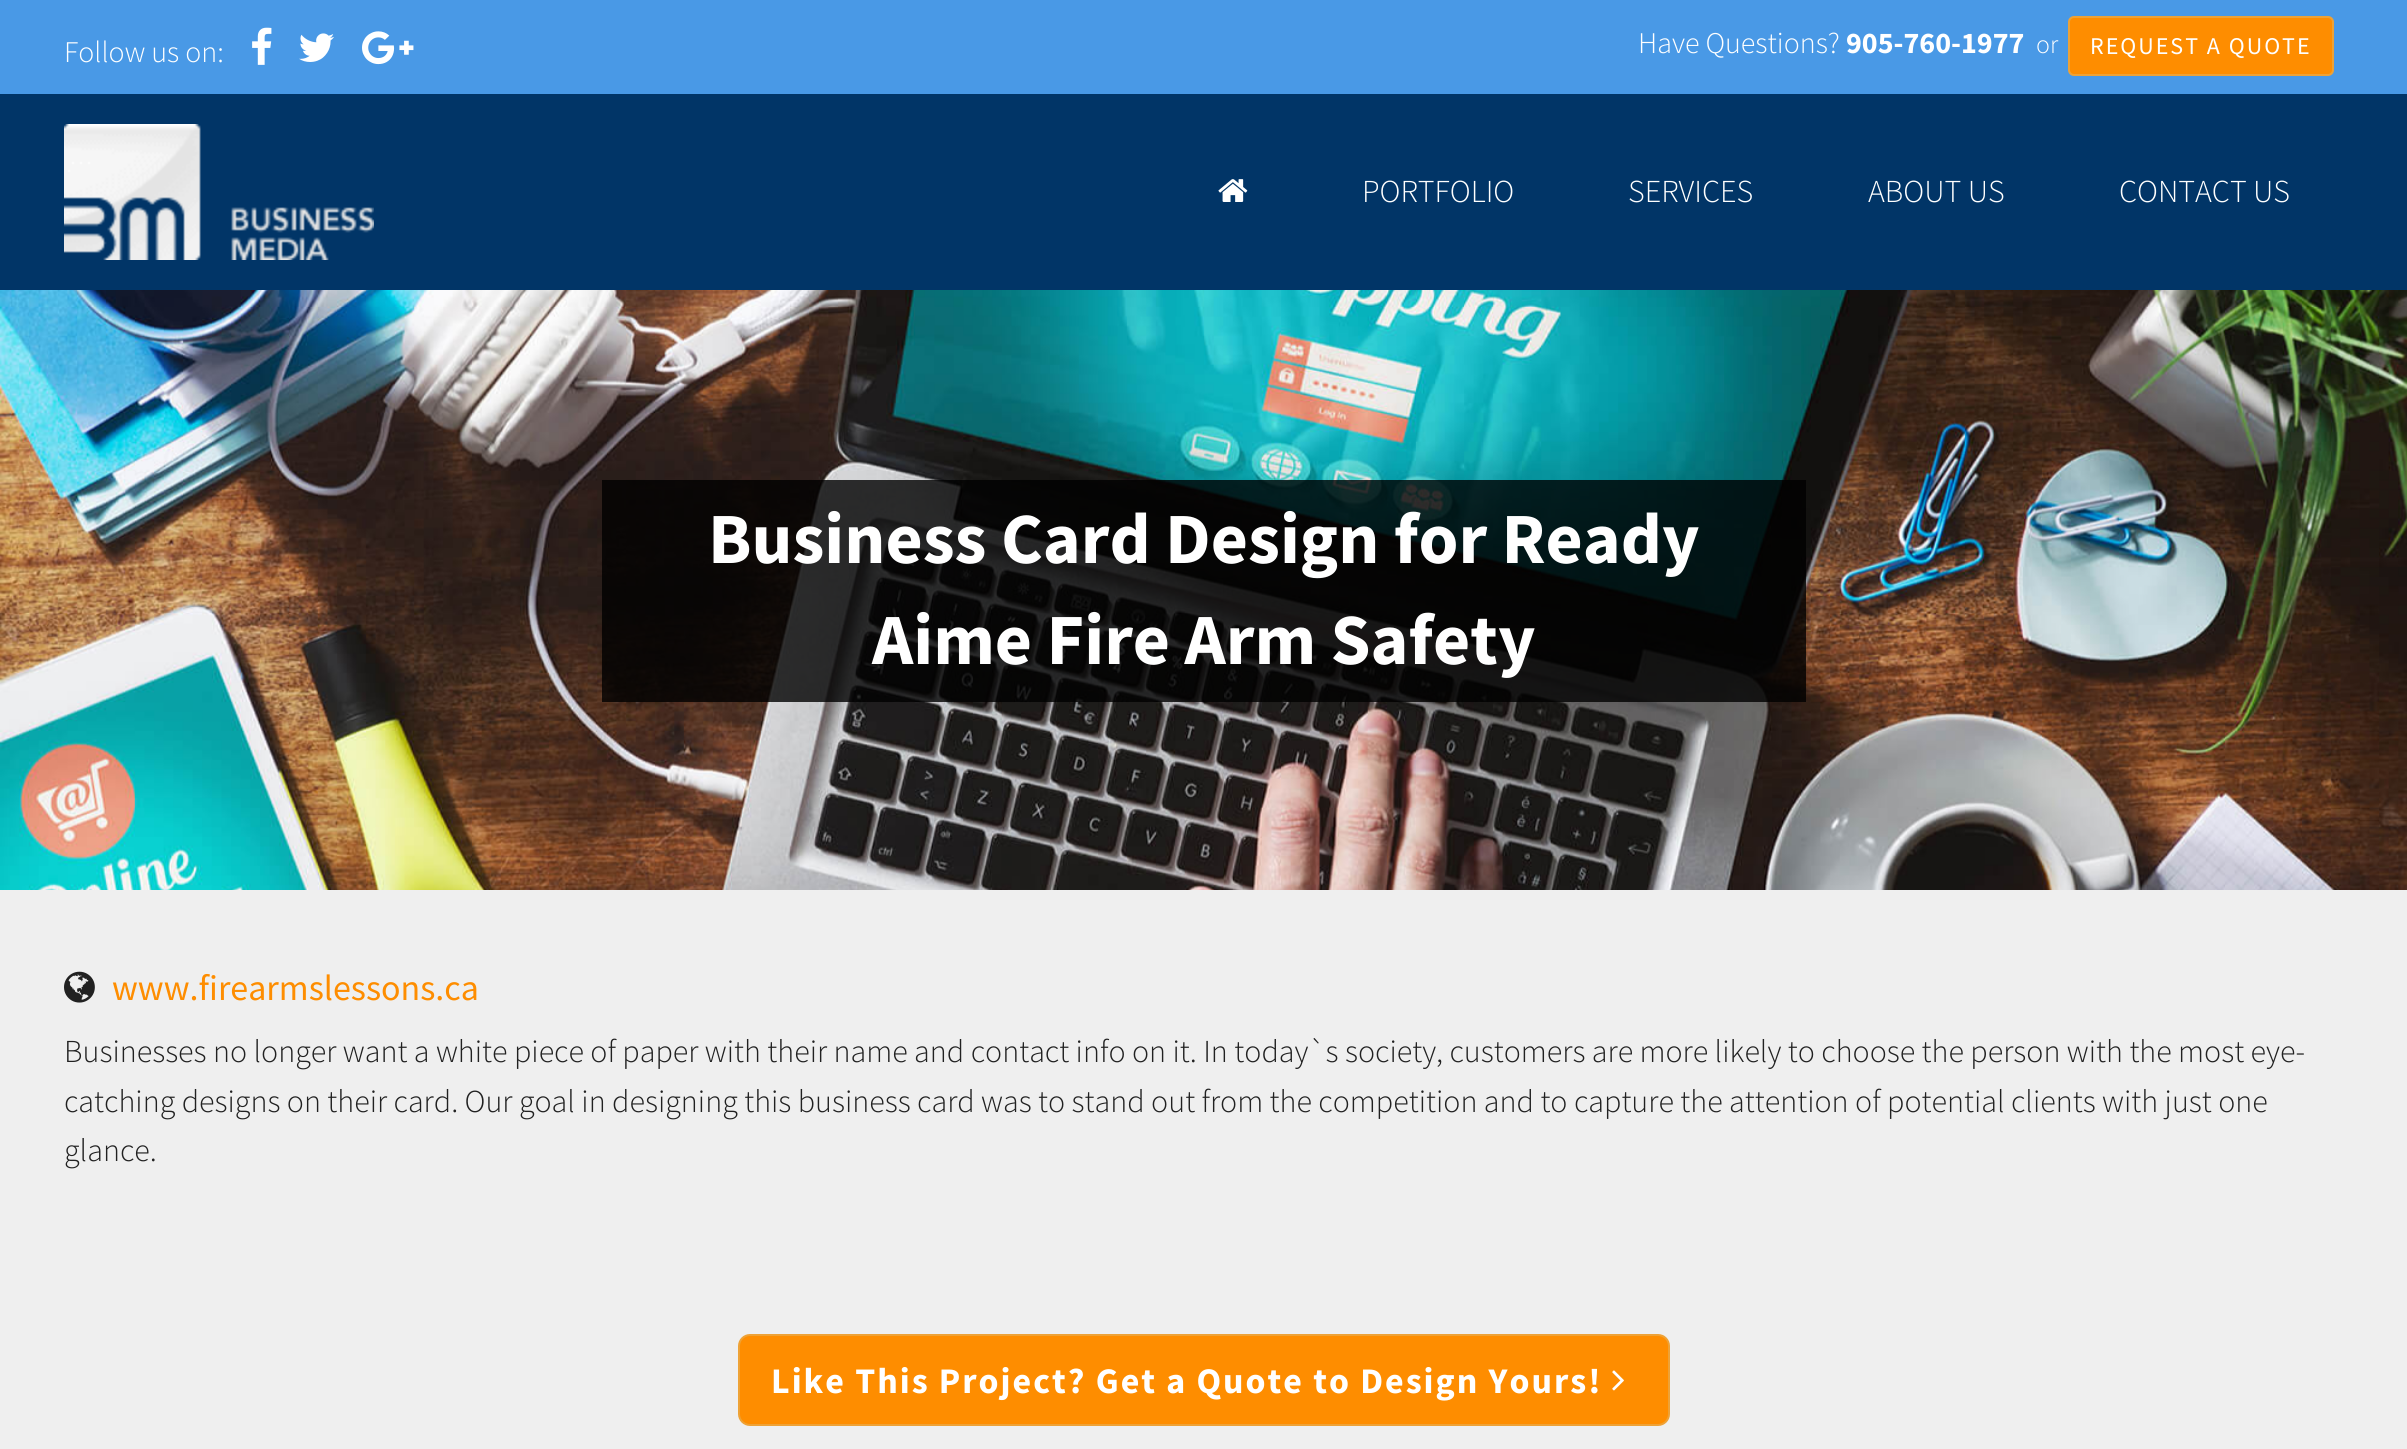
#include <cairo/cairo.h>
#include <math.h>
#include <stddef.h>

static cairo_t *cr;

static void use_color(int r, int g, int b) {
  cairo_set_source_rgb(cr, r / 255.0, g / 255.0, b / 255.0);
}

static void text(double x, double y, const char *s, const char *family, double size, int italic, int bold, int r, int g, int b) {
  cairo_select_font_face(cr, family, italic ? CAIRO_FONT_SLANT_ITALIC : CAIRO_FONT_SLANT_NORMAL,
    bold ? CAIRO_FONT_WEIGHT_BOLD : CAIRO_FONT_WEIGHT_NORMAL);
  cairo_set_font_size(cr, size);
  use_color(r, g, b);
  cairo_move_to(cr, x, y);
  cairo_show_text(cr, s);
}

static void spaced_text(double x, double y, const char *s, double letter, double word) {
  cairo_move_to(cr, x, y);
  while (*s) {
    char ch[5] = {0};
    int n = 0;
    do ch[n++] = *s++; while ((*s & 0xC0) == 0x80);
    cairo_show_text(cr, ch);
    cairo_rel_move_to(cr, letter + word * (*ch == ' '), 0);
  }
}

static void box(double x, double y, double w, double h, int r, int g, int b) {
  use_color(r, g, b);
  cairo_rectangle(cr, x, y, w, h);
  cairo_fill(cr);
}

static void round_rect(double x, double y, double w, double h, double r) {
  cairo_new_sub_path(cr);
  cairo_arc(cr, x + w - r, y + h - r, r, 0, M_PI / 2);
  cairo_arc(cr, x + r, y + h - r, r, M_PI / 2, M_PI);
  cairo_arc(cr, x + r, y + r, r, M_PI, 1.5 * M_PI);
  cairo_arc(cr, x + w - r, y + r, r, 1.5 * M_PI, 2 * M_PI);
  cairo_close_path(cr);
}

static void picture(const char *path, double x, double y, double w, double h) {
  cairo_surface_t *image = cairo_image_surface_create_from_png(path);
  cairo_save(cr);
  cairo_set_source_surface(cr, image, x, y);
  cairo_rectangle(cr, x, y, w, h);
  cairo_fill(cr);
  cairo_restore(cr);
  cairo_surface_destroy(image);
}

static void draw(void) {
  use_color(1, 53, 103);
  cairo_paint(cr);
  box(0, 0, 2407, 94, 73, 153, 230);
  picture("img_01.png", 252, 27, 20, 38);
  picture("img_02.png", 299, 33, 35, 29);
  picture("img_03.png", 362, 31, 52, 34);
  use_color(254, 141, 0);
  round_rect(2069, 17, 264, 58, 5);
  cairo_fill_preserve(cr);
  use_color(238, 162, 54);
  cairo_stroke(cr);
  picture("img_04.png", 64, 124, 310, 136);
  picture("img_05.png", 1218, 179, 30, 23);
  picture("img_06.png", 0, 290, 2407, 600);
  cairo_set_source_rgba(cr, 0, 0, 0, 0.8);
  cairo_rectangle(cr, 602, 480, 1204, 222);
  cairo_fill(cr);
  box(0, 890, 2407, 559, 239, 239, 239);
  picture("img_07.png", 64, 971, 31, 32);
  use_color(254, 141, 0);
  round_rect(739, 1335, 930, 90, 11);
  cairo_fill_preserve(cr);
  use_color(238, 162, 54);
  cairo_stroke(cr);
  picture("img_08.png", 1612, 1370, 12, 21);
  text(64, 62, "Follow us on:", "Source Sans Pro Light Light", 30, 0, 0, 255, 255, 255);
  text(1638, 53, "Have Questions?", "Source Sans Pro Light Light", 30, 0, 0, 255, 255, 255);
  text(1846, 53, "905-760-1977", "Source Sans Pro", 30, 0, 1, 255, 255, 255);
  text(2036, 53, "or", "Source Sans Pro Light Light", 26, 0, 0, 255, 255, 255);
  cairo_select_font_face(cr, "Source Sans Pro", CAIRO_FONT_SLANT_NORMAL, CAIRO_FONT_WEIGHT_NORMAL);
  cairo_set_font_size(cr, 24);
  spaced_text(2090, 54, "REQUEST A QUOTE", 2, 0);
  text(1362, 202, "PORTFOLIO", "Source Sans Pro Light Light", 32, 0, 0, 255, 255, 255);
  text(1628, 202, "SERVICES", "Source Sans Pro Light Light", 32, 0, 0, 255, 255, 255);
  text(1868, 202, "ABOUT US", "Source Sans Pro Light Light", 32, 0, 0, 255, 255, 255);
  text(2119, 202, "CONTACT US", "Source Sans Pro Light Light", 32, 0, 0, 255, 255, 255);
  text(708, 563, "Business Card Design for Ready", "Source Sans Pro", 72, 0, 1, 255, 255, 255);
  text(872, 664, "Aime Fire Arm Safety", "Source Sans Pro", 72, 0, 1, 255, 255, 255);
  text(112, 1000, "www.firearmslessons.ca", "Source Sans Pro", 36, 0, 0, 254, 141, 0);
  text(64, 1062, "Businesses no longer want a white piece of paper with their name and contact info on it. In today`s society, customers are more likely to choose the person with the most eye-", "Source Sans Pro Light Light", 32, 0, 0, 33, 33, 33);
  text(64, 1112, "catching designs on their card. Our goal in designing this business card was to stand out from the competition and to capture the attention of potential clients with just one", "Source Sans Pro Light Light", 32, 0, 0, 33, 33, 33);
  text(64, 1161, "glance.", "Source Sans Pro Light Light", 32, 0, 0, 33, 33, 33);
  cairo_select_font_face(cr, "Source Sans Pro", CAIRO_FONT_SLANT_NORMAL, CAIRO_FONT_WEIGHT_BOLD);
  cairo_set_font_size(cr, 36);
  use_color(255, 255, 255);
  spaced_text(771, 1393, "Like This Project? Get a Quote to Design Yours!", 2, 0);
}

int main(void) {
  cairo_surface_t *surface = cairo_image_surface_create(CAIRO_FORMAT_RGB24, 2407, 1449);
  cr = cairo_create(surface);
  cairo_font_options_t *options = cairo_font_options_create();
  cairo_font_options_set_hint_metrics(options, CAIRO_HINT_METRICS_OFF);
  cairo_font_options_set_hint_style(options, CAIRO_HINT_STYLE_NONE);
  cairo_set_font_options(cr, options);
  cairo_set_miter_limit(cr, 4);
  draw();
  cairo_surface_write_to_png(surface, "out.png");
  cairo_font_options_destroy(options);
  cairo_destroy(cr);
  cairo_surface_destroy(surface);
  return 0;
}
